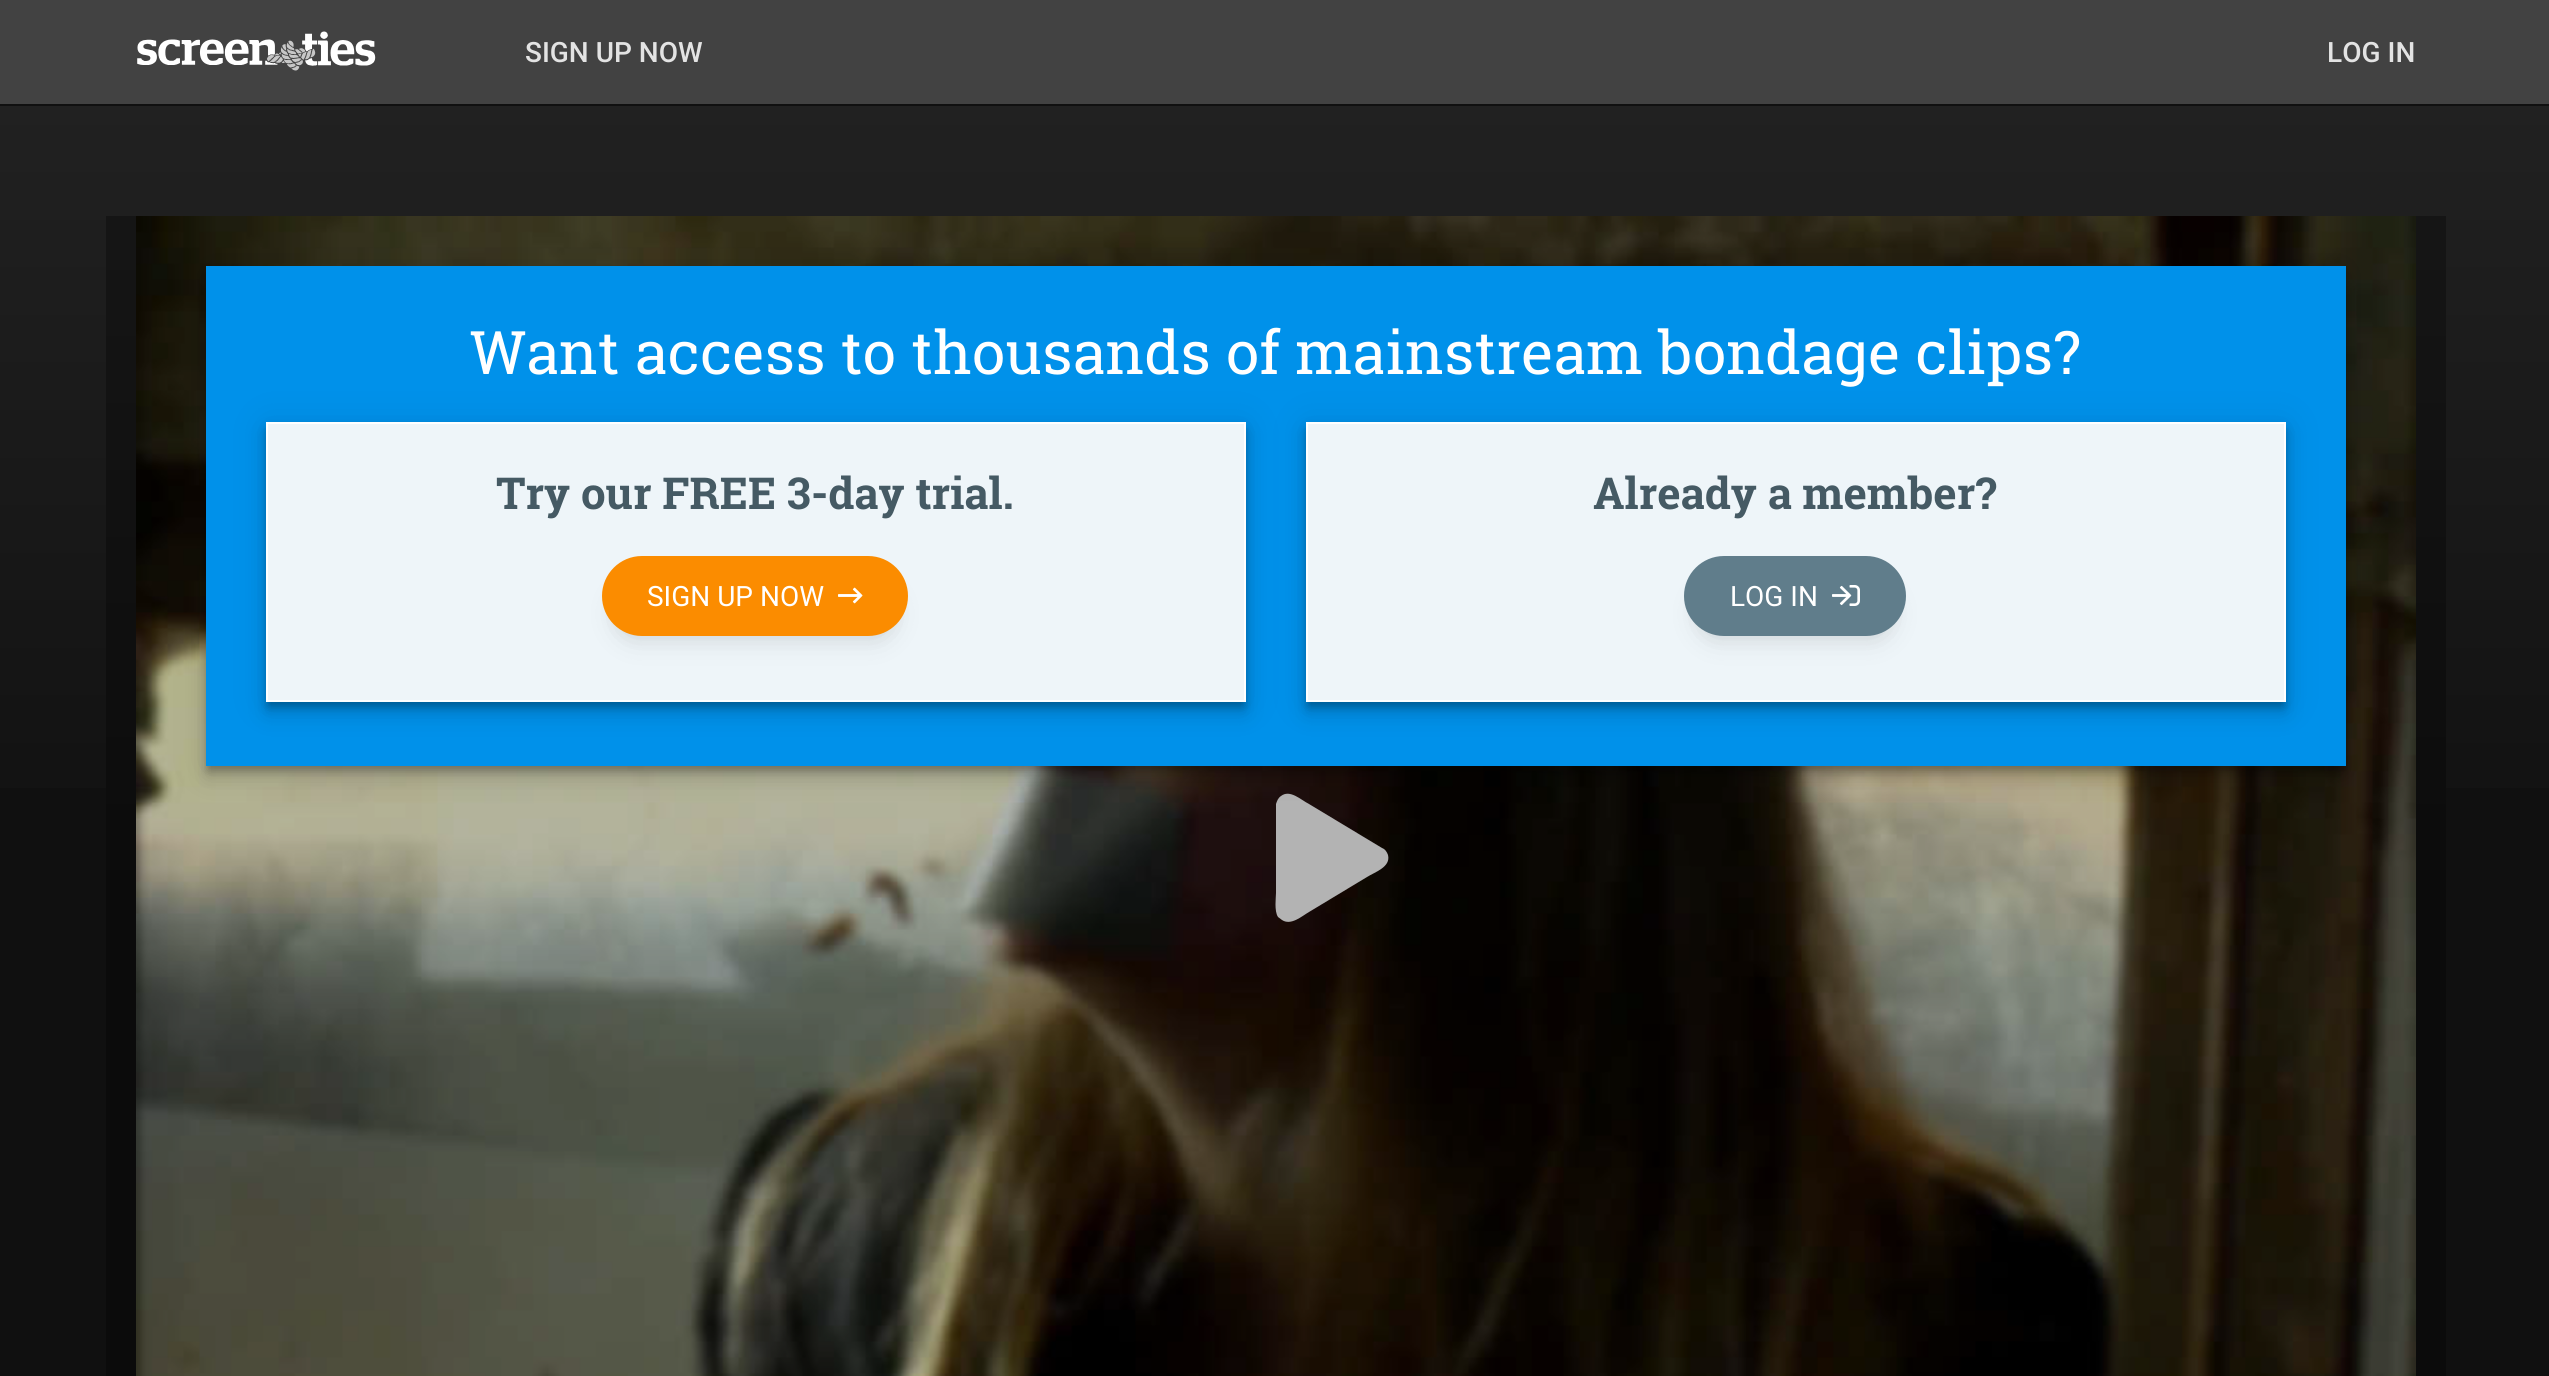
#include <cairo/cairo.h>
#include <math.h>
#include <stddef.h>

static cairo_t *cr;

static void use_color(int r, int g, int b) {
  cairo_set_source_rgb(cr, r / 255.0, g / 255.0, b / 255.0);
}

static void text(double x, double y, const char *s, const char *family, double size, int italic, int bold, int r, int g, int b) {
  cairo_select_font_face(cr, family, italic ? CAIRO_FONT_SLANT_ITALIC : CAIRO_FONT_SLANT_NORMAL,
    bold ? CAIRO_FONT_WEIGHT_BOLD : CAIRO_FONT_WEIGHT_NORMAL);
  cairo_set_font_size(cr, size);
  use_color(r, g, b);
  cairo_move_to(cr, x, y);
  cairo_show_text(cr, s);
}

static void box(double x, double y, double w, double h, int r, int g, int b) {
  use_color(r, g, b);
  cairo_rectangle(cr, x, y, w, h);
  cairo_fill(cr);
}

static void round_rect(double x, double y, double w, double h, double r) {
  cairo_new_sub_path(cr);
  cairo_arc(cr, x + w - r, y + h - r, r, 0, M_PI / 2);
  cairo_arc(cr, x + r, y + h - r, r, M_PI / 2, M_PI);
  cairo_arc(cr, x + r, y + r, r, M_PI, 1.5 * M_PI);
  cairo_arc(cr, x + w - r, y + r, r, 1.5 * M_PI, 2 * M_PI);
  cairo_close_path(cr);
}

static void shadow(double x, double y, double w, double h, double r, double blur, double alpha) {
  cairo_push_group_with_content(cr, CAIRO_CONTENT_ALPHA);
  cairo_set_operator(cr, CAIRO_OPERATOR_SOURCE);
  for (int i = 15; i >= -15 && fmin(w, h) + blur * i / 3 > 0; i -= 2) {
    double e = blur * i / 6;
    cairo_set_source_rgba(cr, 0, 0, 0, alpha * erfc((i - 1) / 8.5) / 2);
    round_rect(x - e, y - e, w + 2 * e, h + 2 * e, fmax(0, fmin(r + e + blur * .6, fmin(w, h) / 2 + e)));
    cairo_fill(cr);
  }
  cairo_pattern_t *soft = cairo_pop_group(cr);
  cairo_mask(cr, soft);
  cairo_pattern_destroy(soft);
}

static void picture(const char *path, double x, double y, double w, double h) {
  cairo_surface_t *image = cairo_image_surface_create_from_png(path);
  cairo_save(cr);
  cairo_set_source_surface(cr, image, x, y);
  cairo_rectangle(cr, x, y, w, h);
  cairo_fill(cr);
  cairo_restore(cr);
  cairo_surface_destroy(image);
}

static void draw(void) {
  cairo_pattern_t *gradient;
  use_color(16, 16, 16);
  cairo_paint(cr);
  box(0, 0, 2549, 104, 66, 66, 66);
  picture("img_01.png", 137, 31, 239, 40);
  gradient = cairo_pattern_create_linear(1275, 106, 1275, 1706);
  cairo_pattern_add_color_stop_rgba(gradient, 0, 0.129, 0.129, 0.129, 1);
  cairo_pattern_add_color_stop_rgba(gradient, 0.5, 0.063, 0.063, 0.063, 1);
  cairo_set_source(cr, gradient);
  cairo_pattern_destroy(gradient);
  cairo_rectangle(cr, 0, 106, 2549, 682);
  cairo_fill(cr);
  gradient = cairo_pattern_create_linear(1275, 106, 1275, 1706);
  cairo_pattern_add_color_stop_rgba(gradient, 0, 0.09, 0.09, 0.09, 1);
  cairo_pattern_add_color_stop_rgba(gradient, 0.5, 0.043, 0.043, 0.043, 1);
  cairo_set_source(cr, gradient);
  cairo_pattern_destroy(gradient);
  cairo_rectangle(cr, 106, 216, 2340, 1160);
  cairo_fill(cr);
  picture("img_02.png", 136, 216, 2280, 1160);
  use_color(0, 0, 0);
  shadow(208, 274, 2136, 496, 0, 5, 0.3);
  use_color(179, 179, 179);
  cairo_new_path(cr);
  cairo_move_to(cr, 1382, 848);
  cairo_line_to(cr, 1309, 804);
  cairo_curve_to(cr, 1301, 800, 1290, 789, 1281, 796);
  cairo_curve_to(cr, 1278, 798, 1277, 801, 1276, 804);
  cairo_line_to(cr, 1276, 893);
  cairo_curve_to(cr, 1276, 897, 1274, 911, 1278, 917);
  cairo_line_to(cr, 1282, 920);
  cairo_curve_to(cr, 1291, 926, 1302, 916, 1309, 912);
  cairo_line_to(cr, 1367, 877);
  cairo_curve_to(cr, 1375, 872, 1391, 867, 1388, 855);
  cairo_curve_to(cr, 1387, 852, 1385, 849, 1382, 848);
  cairo_close_path(cr);
  cairo_fill(cr);
  use_color(0, 0, 0);
  shadow(206, 268, 2140, 500, 0, 18, 0.09);
  shadow(206, 278, 2140, 500, 0, 10, 0.11);
  box(206, 266, 2140, 500, 0, 145, 234);
  use_color(0, 0, 0);
  shadow(268, 430, 976, 276, 0, 5, 0.3);
  shadow(266, 424, 980, 280, 0, 18, 0.09);
  shadow(266, 434, 980, 280, 0, 10, 0.11);
  use_color(238, 245, 249);
  cairo_rectangle(cr, 267, 423, 978, 278);
  cairo_fill_preserve(cr);
  use_color(255, 255, 255);
  cairo_stroke(cr);
  use_color(0, 0, 0);
  shadow(612, 578, 286, 60, 30, 7, 0.05);
  shadow(618, 590, 274, 48, 24, 15, 0.11);
  use_color(251, 140, 0);
  round_rect(603, 557, 304, 78, 39);
  cairo_fill_preserve(cr);
  cairo_stroke(cr);
  picture("img_03.png", 838, 587, 25, 17);
  use_color(0, 0, 0);
  shadow(1308, 430, 976, 276, 0, 5, 0.3);
  shadow(1306, 424, 980, 280, 0, 18, 0.09);
  shadow(1306, 434, 980, 280, 0, 10, 0.11);
  use_color(238, 245, 249);
  cairo_rectangle(cr, 1307, 423, 978, 278);
  cairo_fill_preserve(cr);
  use_color(255, 255, 255);
  cairo_stroke(cr);
  use_color(0, 0, 0);
  shadow(1694, 578, 202, 60, 30, 7, 0.05);
  shadow(1700, 590, 190, 48, 24, 15, 0.11);
  use_color(96, 125, 139);
  round_rect(1685, 557, 220, 78, 39);
  cairo_fill_preserve(cr);
  cairo_stroke(cr);
  picture("img_04.png", 1832, 585, 28, 21);
  text(525, 62, "SIGN UP NOW", "Roboto Medium", 28, 0, 0, 227, 227, 227);
  text(2327, 62, "LOG IN", "Roboto Medium", 28, 0, 0, 227, 227, 227);
  text(470, 374, "Want access to thousands of mainstream bondage clips?", "Roboto Slab", 60, 0, 0, 255, 255, 255);
  text(496, 509, "Try our FREE 3-day trial.", "Roboto Slab", 44, 0, 1, 69, 90, 100);
  text(647, 606, "SIGN UP NOW", "Roboto", 28, 0, 0, 255, 255, 255);
  text(1593, 509, "Already a member?", "Roboto Slab", 44, 0, 1, 69, 90, 100);
  text(1730, 606, "LOG IN", "Roboto", 28, 0, 0, 255, 255, 255);
}

int main(void) {
  cairo_surface_t *surface = cairo_image_surface_create(CAIRO_FORMAT_RGB24, 2549, 1376);
  cr = cairo_create(surface);
  cairo_font_options_t *options = cairo_font_options_create();
  cairo_font_options_set_hint_metrics(options, CAIRO_HINT_METRICS_OFF);
  cairo_font_options_set_hint_style(options, CAIRO_HINT_STYLE_NONE);
  cairo_set_font_options(cr, options);
  cairo_set_miter_limit(cr, 4);
  draw();
  cairo_surface_write_to_png(surface, "out.png");
  cairo_font_options_destroy(options);
  cairo_destroy(cr);
  cairo_surface_destroy(surface);
  return 0;
}
